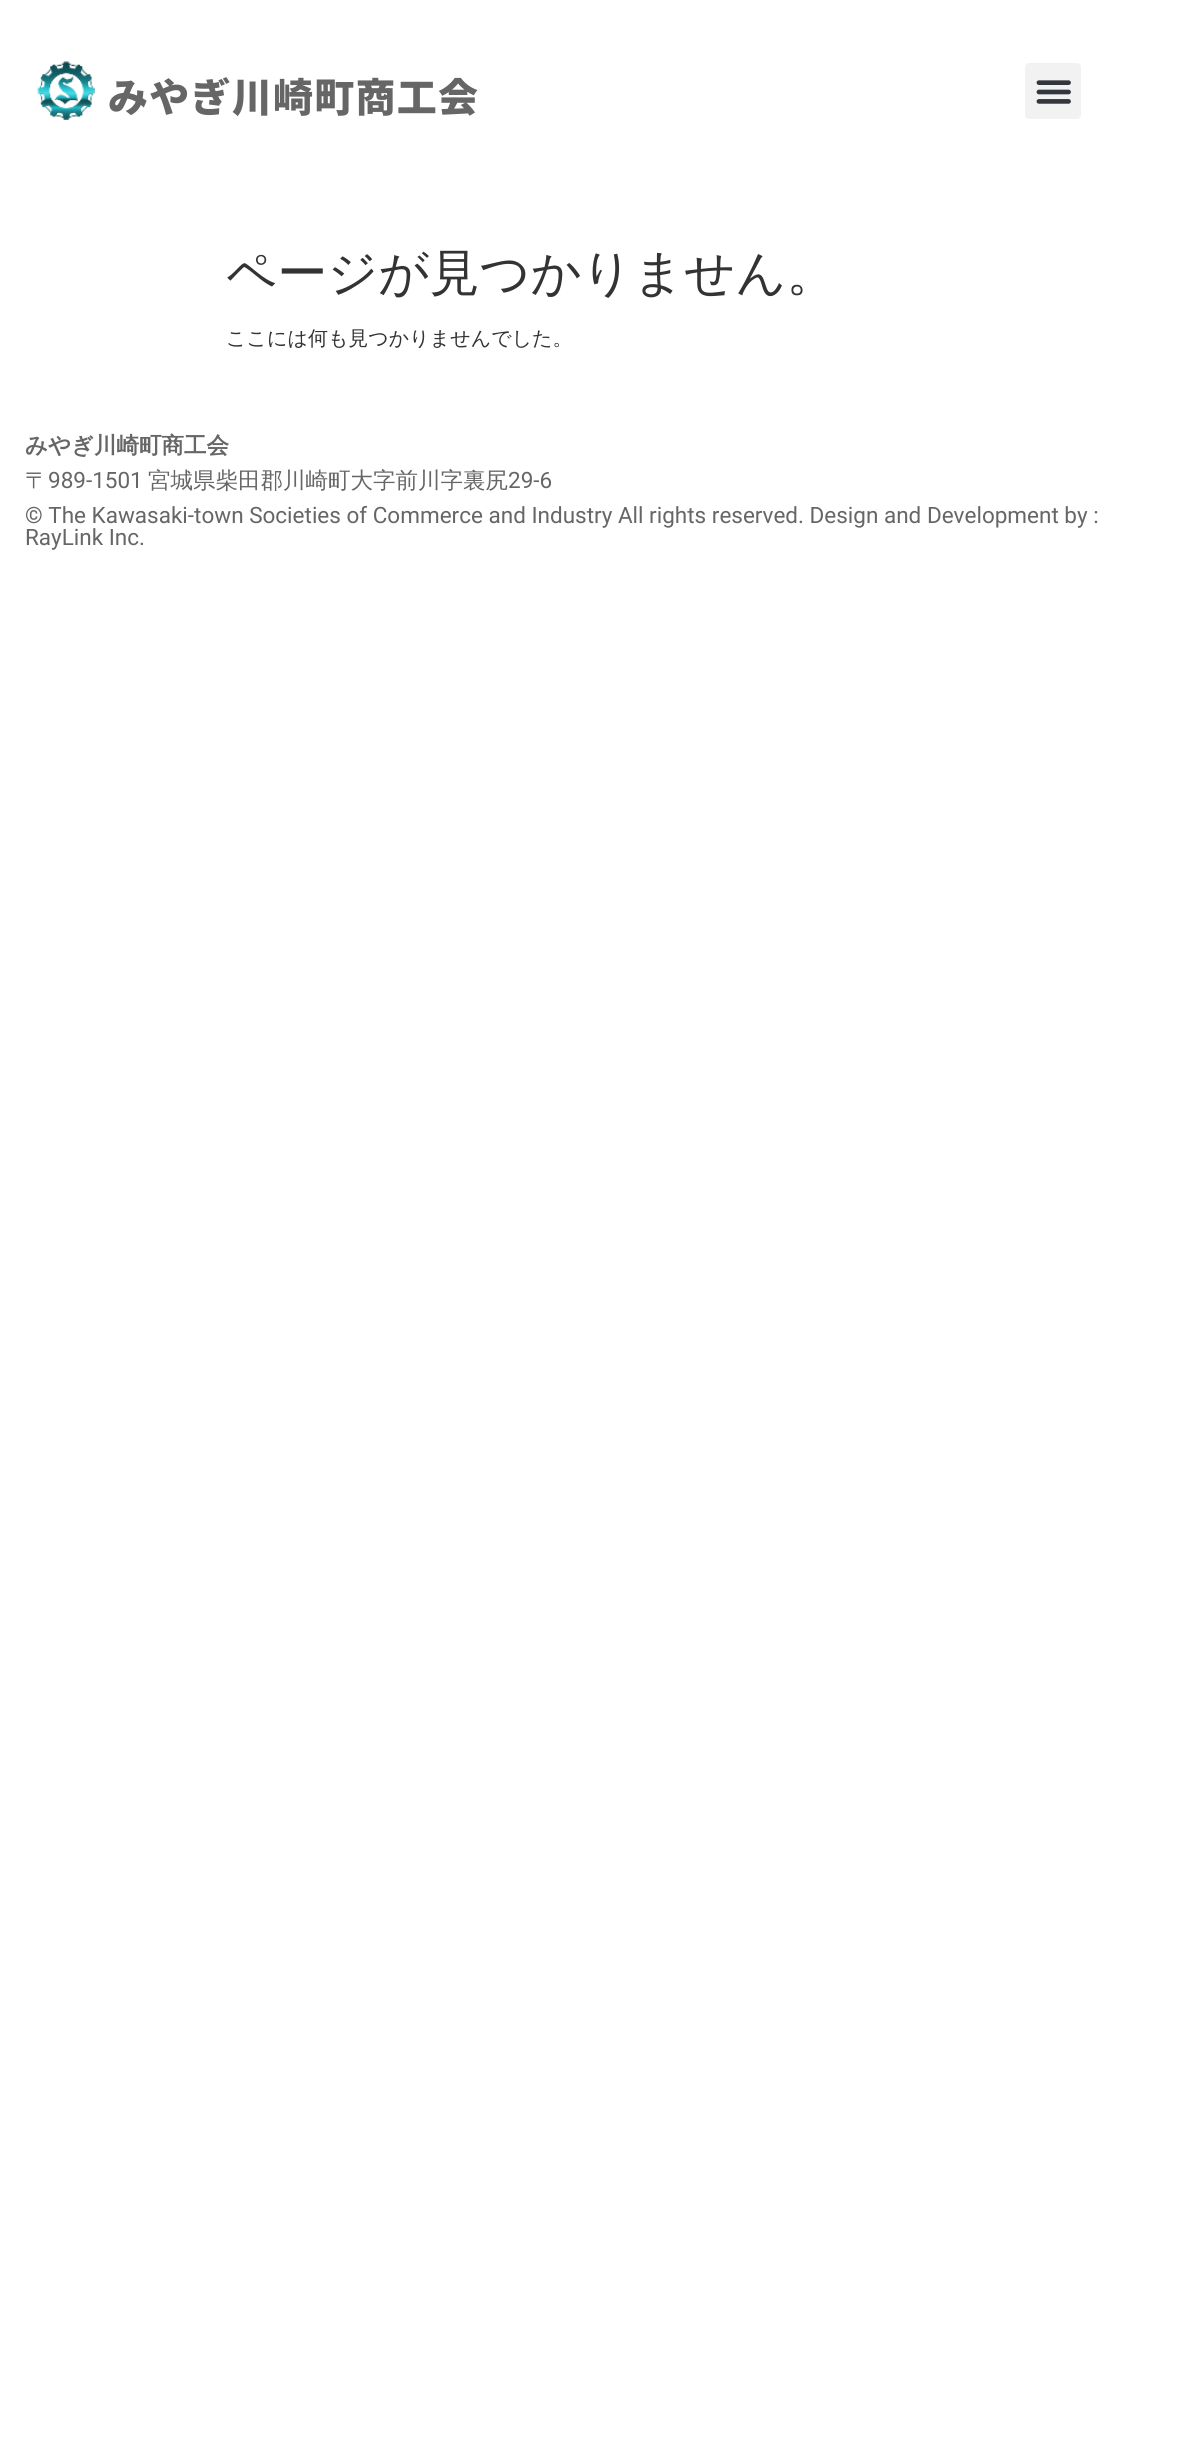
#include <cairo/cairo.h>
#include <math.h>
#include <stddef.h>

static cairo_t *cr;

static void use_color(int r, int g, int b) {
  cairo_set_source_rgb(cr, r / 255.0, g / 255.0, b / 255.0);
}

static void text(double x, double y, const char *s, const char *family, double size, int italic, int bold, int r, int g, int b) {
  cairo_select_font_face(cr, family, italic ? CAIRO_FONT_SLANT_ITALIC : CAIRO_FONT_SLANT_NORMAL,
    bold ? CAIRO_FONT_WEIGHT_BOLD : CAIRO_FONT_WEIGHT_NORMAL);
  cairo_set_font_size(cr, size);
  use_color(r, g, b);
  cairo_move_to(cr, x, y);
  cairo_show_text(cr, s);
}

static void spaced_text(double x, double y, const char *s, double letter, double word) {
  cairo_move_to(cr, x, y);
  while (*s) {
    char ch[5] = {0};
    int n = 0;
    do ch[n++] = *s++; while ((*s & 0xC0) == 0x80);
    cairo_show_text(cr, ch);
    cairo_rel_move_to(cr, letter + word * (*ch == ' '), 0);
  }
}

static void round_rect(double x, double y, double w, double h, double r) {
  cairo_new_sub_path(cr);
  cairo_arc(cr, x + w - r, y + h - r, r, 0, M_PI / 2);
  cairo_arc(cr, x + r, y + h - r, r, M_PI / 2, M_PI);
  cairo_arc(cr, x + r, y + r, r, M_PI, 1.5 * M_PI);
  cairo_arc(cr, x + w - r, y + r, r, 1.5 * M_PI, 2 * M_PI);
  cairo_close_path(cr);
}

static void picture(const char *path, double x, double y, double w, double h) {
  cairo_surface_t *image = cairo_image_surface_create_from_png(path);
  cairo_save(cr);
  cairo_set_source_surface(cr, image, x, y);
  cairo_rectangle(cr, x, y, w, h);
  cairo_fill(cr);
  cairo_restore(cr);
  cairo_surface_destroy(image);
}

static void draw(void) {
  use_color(255, 255, 255);
  cairo_paint(cr);
  picture("img_01.png", 37, 61, 58, 59);
  use_color(242, 242, 242);
  round_rect(1025, 63, 56, 56, 4);
  cairo_fill(cr);
  picture("img_02.png", 1036, 80, 35, 24);
  cairo_select_font_face(cr, "Noto Sans JP Black", CAIRO_FONT_SLANT_NORMAL, CAIRO_FONT_WEIGHT_NORMAL);
  cairo_set_font_size(cr, 40);
  use_color(102, 102, 102);
  spaced_text(108, 112, "みやぎ川崎町商工会", 1.25, 0);
  text(226, 290, "ページが見つかりません。", "WenQuanYi Zen Hei Medium", 50, 0, 0, 51, 51, 51);
  text(226, 345, "ここには何も見つかりませんでした。", "WenQuanYi Zen Hei Medium", 20, 0, 0, 51, 51, 51);
  text(25, 453, "みやぎ川崎町商工会", "WenQuanYi Zen Hei", 22.5, 0, 1, 102, 102, 102);
  text(25, 488, "〒", "WenQuanYi Zen Hei Medium", 22.5, 0, 0, 102, 102, 102);
  text(48, 488, "989-1501", "Roboto", 22.5, 0, 0, 102, 102, 102);
  text(148, 488, "宮城県柴田郡川崎町大字前川字裏尻", "WenQuanYi Zen Hei Medium", 22.5, 0, 0, 102, 102, 102);
  text(508, 488, "29-6", "Roboto", 22.5, 0, 0, 102, 102, 102);
  text(25, 523, "© The Kawasaki-town Societies of Commerce and Industry All rights reserved. Design and Development by :", "Roboto", 22.5, 0, 0, 102, 102, 102);
  text(25, 545, "RayLink Inc.", "Roboto", 22.5, 0, 0, 102, 102, 102);
}

int main(void) {
  cairo_surface_t *surface = cairo_image_surface_create(CAIRO_FORMAT_RGB24, 1201, 2448);
  cr = cairo_create(surface);
  cairo_font_options_t *options = cairo_font_options_create();
  cairo_font_options_set_hint_metrics(options, CAIRO_HINT_METRICS_OFF);
  cairo_font_options_set_hint_style(options, CAIRO_HINT_STYLE_NONE);
  cairo_set_font_options(cr, options);
  cairo_set_miter_limit(cr, 4);
  draw();
  cairo_surface_write_to_png(surface, "out.png");
  cairo_font_options_destroy(options);
  cairo_destroy(cr);
  cairo_surface_destroy(surface);
  return 0;
}
